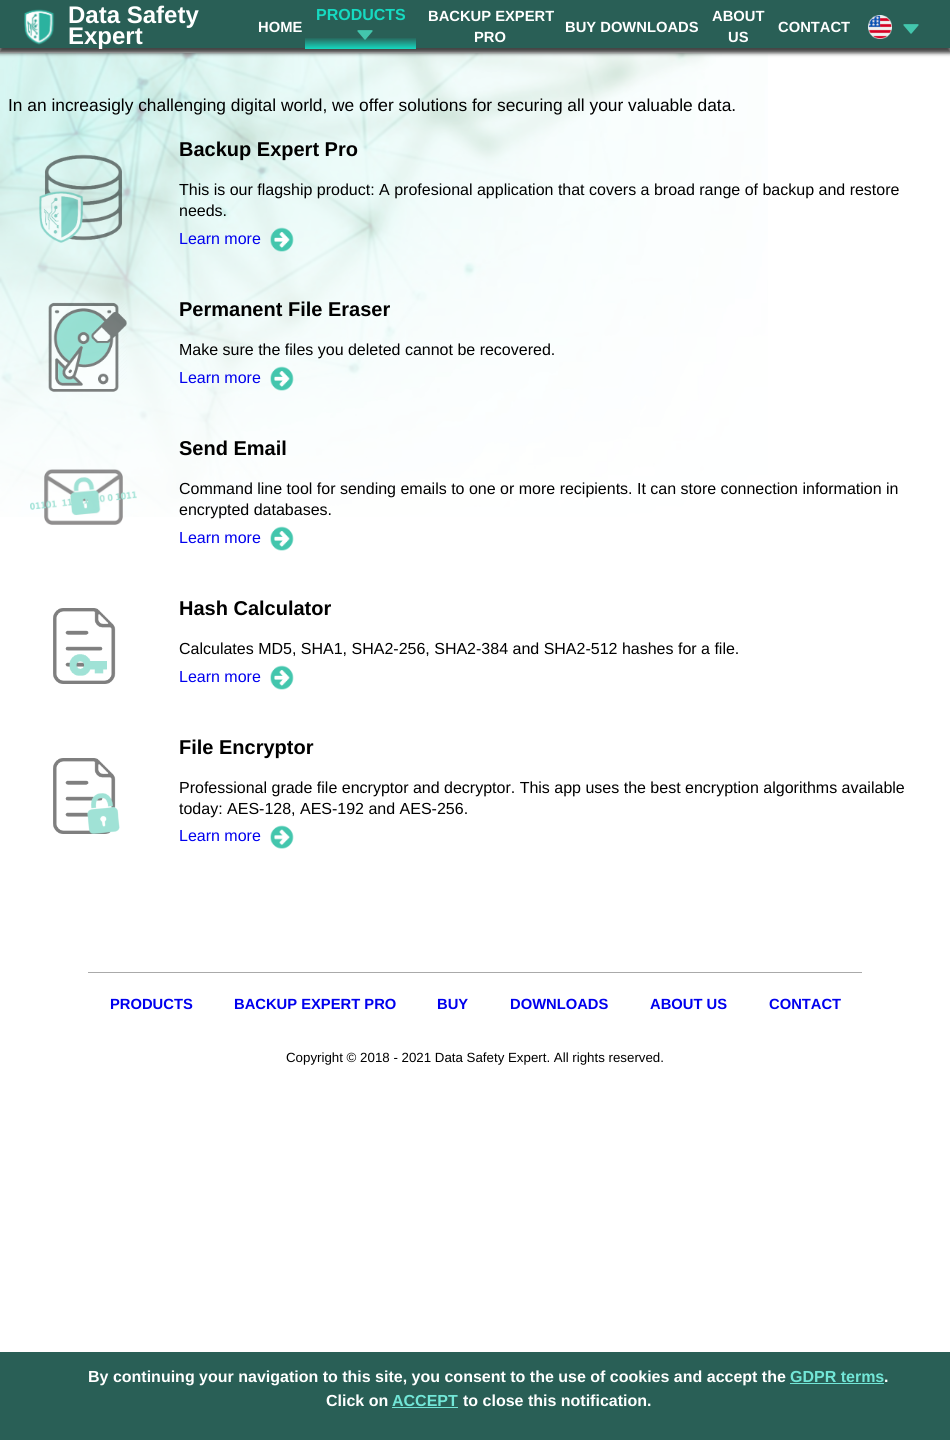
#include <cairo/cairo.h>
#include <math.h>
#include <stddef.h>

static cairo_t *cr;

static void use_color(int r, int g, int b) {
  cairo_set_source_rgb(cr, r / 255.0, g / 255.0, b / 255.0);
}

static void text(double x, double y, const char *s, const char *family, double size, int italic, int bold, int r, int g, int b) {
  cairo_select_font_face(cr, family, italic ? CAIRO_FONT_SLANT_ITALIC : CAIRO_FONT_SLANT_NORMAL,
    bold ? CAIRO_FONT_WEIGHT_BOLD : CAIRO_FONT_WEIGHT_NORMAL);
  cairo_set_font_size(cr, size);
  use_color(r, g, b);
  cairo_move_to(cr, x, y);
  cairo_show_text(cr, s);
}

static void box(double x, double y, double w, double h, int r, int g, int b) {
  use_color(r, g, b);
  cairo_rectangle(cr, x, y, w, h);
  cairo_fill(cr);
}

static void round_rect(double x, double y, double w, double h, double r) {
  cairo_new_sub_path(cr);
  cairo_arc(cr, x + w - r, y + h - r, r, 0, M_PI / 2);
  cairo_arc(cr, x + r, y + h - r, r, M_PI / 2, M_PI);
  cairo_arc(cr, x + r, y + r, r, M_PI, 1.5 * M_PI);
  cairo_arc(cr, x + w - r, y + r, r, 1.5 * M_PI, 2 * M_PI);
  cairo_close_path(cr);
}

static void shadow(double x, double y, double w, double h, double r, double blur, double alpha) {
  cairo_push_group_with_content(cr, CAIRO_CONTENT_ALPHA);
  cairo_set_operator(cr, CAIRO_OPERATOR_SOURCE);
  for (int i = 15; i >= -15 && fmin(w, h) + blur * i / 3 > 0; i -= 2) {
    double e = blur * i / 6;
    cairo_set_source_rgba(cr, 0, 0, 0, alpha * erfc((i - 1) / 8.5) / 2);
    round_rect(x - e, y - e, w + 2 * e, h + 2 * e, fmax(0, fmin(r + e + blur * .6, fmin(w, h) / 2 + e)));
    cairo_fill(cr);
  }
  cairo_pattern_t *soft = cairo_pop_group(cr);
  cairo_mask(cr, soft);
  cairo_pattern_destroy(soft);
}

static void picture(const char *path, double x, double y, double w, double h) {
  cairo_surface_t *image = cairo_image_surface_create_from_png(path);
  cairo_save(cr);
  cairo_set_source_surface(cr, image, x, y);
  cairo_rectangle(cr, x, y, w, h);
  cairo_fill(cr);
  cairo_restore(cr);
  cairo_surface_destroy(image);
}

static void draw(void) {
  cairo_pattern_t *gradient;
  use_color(255, 255, 255);
  cairo_paint(cr);
  picture("img_05.png", 0, 53, 768, 464);
  use_color(68, 68, 68);
  shadow(-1, 3, 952, 50, 0, 2, 1);
  box(0, 0, 950, 48, 41, 95, 86);
  picture("img_01.png", 24, 9, 31, 36);
  gradient = cairo_pattern_create_linear(361, 2, 361, 49);
  cairo_pattern_add_color_stop_rgba(gradient, 0, 1, 1, 1, 0);
  cairo_pattern_add_color_stop_rgba(gradient, 0.5, 1, 1, 1, 0);
  cairo_pattern_add_color_stop_rgba(gradient, 0.75, 0.086, 0.855, 0.757, 0);
  cairo_pattern_add_color_stop_rgba(gradient, 1, 0.086, 0.855, 0.757, 1);
  cairo_set_source(cr, gradient);
  cairo_pattern_destroy(gradient);
  cairo_rectangle(cr, 305, 38, 111, 11);
  cairo_fill(cr);
  picture("img_02.png", 357, 30, 16, 10);
  picture("img_03.png", 868, 15, 24, 24);
  picture("img_04.png", 903, 24, 16, 10);
  picture("img_06.png", 39, 154, 84, 89);
  picture("img_07.png", 270, 227, 24, 25);
  picture("img_08.png", 48, 302, 79, 90);
  picture("img_09.png", 270, 366, 24, 25);
  picture("img_10.png", 30, 469, 107, 56);
  picture("img_11.png", 270, 526, 24, 25);
  picture("img_12.png", 53, 608, 63, 76);
  picture("img_11.png", 270, 665, 24, 25);
  picture("img_13.png", 53, 758, 67, 76);
  picture("img_14.png", 270, 825, 24, 24);
  box(88, 972, 774, 1, 170, 170, 170);
  box(0, 1352, 950, 88, 41, 95, 86);
  box(790, 1383, 94, 1, 114, 230, 215);
  box(392, 1407, 66, 1, 114, 230, 215);
  text(68, 23, "Data Safety", "Liberation Sans", 24, 0, 1, 255, 255, 255);
  text(68, 44, "Expert", "Liberation Sans", 24, 0, 1, 255, 255, 255);
  text(258, 32, "HOME", "Liberation Sans", 14.75, 0, 1, 255, 255, 255);
  text(316, 20, "PRODUCTS", "Liberation Sans", 16, 0, 1, 22, 218, 193);
  text(428, 21, "BACKUP EXPERT", "Liberation Sans", 14.75, 0, 1, 255, 255, 255);
  text(474, 42, "PRO", "Liberation Sans", 14.75, 0, 1, 255, 255, 255);
  text(565, 32, "BUY DOWNLOADS", "Liberation Sans", 14.75, 0, 1, 255, 255, 255);
  text(712, 21, "ABOUT", "Liberation Sans", 14.75, 0, 1, 255, 255, 255);
  text(728, 42, "US", "Liberation Sans", 14.75, 0, 1, 255, 255, 255);
  text(778, 32, "CONTACT", "Liberation Sans", 14.75, 0, 1, 255, 255, 255);
  text(8, 111, "In an increasigly challenging digital world, we offer solutions for securing all your valuable data.", "Liberation Sans", 17.35, 0, 0, 0, 0, 0);
  text(179, 156, "Backup Expert Pro", "Liberation Sans", 20, 0, 1, 0, 0, 0);
  text(179, 195, "This is our flagship product: A profesional application that covers a broad range of backup and restore", "Liberation Sans", 16, 0, 0, 0, 0, 0);
  text(179, 216, "needs.", "Liberation Sans", 16, 0, 0, 0, 0, 0);
  text(179, 244, "Learn more", "Liberation Sans", 16, 0, 0, 0, 0, 238);
  text(179, 316, "Permanent File Eraser", "Liberation Sans", 20, 0, 1, 0, 0, 0);
  text(179, 355, "Make sure the files you deleted cannot be recovered.", "Liberation Sans", 16, 0, 0, 0, 0, 0);
  text(179, 383, "Learn more", "Liberation Sans", 16, 0, 0, 0, 0, 238);
  text(179, 455, "Send Email", "Liberation Sans", 20, 0, 1, 0, 0, 0);
  text(179, 494, "Command line tool for sending emails to one or more recipients. It can store connection information in", "Liberation Sans", 16, 0, 0, 0, 0, 0);
  text(179, 515, "encrypted databases.", "Liberation Sans", 16, 0, 0, 0, 0, 0);
  text(179, 543, "Learn more", "Liberation Sans", 16, 0, 0, 0, 0, 238);
  text(179, 615, "Hash Calculator", "Liberation Sans", 20, 0, 1, 0, 0, 0);
  text(179, 654, "Calculates MD5, SHA1, SHA2-256, SHA2-384 and SHA2-512 hashes for a file.", "Liberation Sans", 16, 0, 0, 0, 0, 0);
  text(179, 682, "Learn more", "Liberation Sans", 16, 0, 0, 0, 0, 238);
  text(179, 754, "File Encryptor", "Liberation Sans", 20, 0, 1, 0, 0, 0);
  text(179, 793, "Professional grade file encryptor and decryptor. This app uses the best encryption algorithms available", "Liberation Sans", 16, 0, 0, 0, 0, 0);
  text(179, 814, "today: AES-128, AES-192 and AES-256.", "Liberation Sans", 16, 0, 0, 0, 0, 0);
  text(179, 841, "Learn more", "Liberation Sans", 16, 0, 0, 0, 0, 238);
  text(110, 1009, "PRODUCTS", "Liberation Sans", 14.75, 0, 1, 0, 0, 238);
  text(234, 1009, "BACKUP EXPERT PRO", "Liberation Sans", 14.75, 0, 1, 0, 0, 238);
  text(437, 1009, "BUY", "Liberation Sans", 14.75, 0, 1, 0, 0, 238);
  text(510, 1009, "DOWNLOADS", "Liberation Sans", 14.75, 0, 1, 0, 0, 238);
  text(650, 1009, "ABOUT US", "Liberation Sans", 14.75, 0, 1, 0, 0, 238);
  text(769, 1009, "CONTACT", "Liberation Sans", 14.75, 0, 1, 0, 0, 238);
  text(286, 1062, "Copyright © 2018 - 2021 Data Safety Expert. All rights reserved.", "Liberation Sans", 13.3, 0, 0, 0, 0, 0);
  text(88, 1382, "By continuing your navigation to this site, you consent to the use of cookies and accept the", "Liberation Sans", 16, 0, 1, 255, 255, 255);
  text(790, 1382, "GDPR terms", "Liberation Sans", 16, 0, 1, 114, 230, 215);
  text(884, 1382, ".", "Liberation Sans", 16, 0, 1, 255, 255, 255);
  text(326, 1406, "Click on", "Liberation Sans", 16, 0, 1, 255, 255, 255);
  text(392, 1406, "ACCEPT", "Liberation Sans", 16, 0, 1, 114, 230, 215);
  text(463, 1406, "to close this notification.", "Liberation Sans", 16, 0, 1, 255, 255, 255);
}

int main(void) {
  cairo_surface_t *surface = cairo_image_surface_create(CAIRO_FORMAT_RGB24, 950, 1440);
  cr = cairo_create(surface);
  cairo_font_options_t *options = cairo_font_options_create();
  cairo_font_options_set_hint_metrics(options, CAIRO_HINT_METRICS_OFF);
  cairo_font_options_set_hint_style(options, CAIRO_HINT_STYLE_NONE);
  cairo_set_font_options(cr, options);
  cairo_set_miter_limit(cr, 4);
  draw();
  cairo_surface_write_to_png(surface, "out.png");
  cairo_font_options_destroy(options);
  cairo_destroy(cr);
  cairo_surface_destroy(surface);
  return 0;
}
